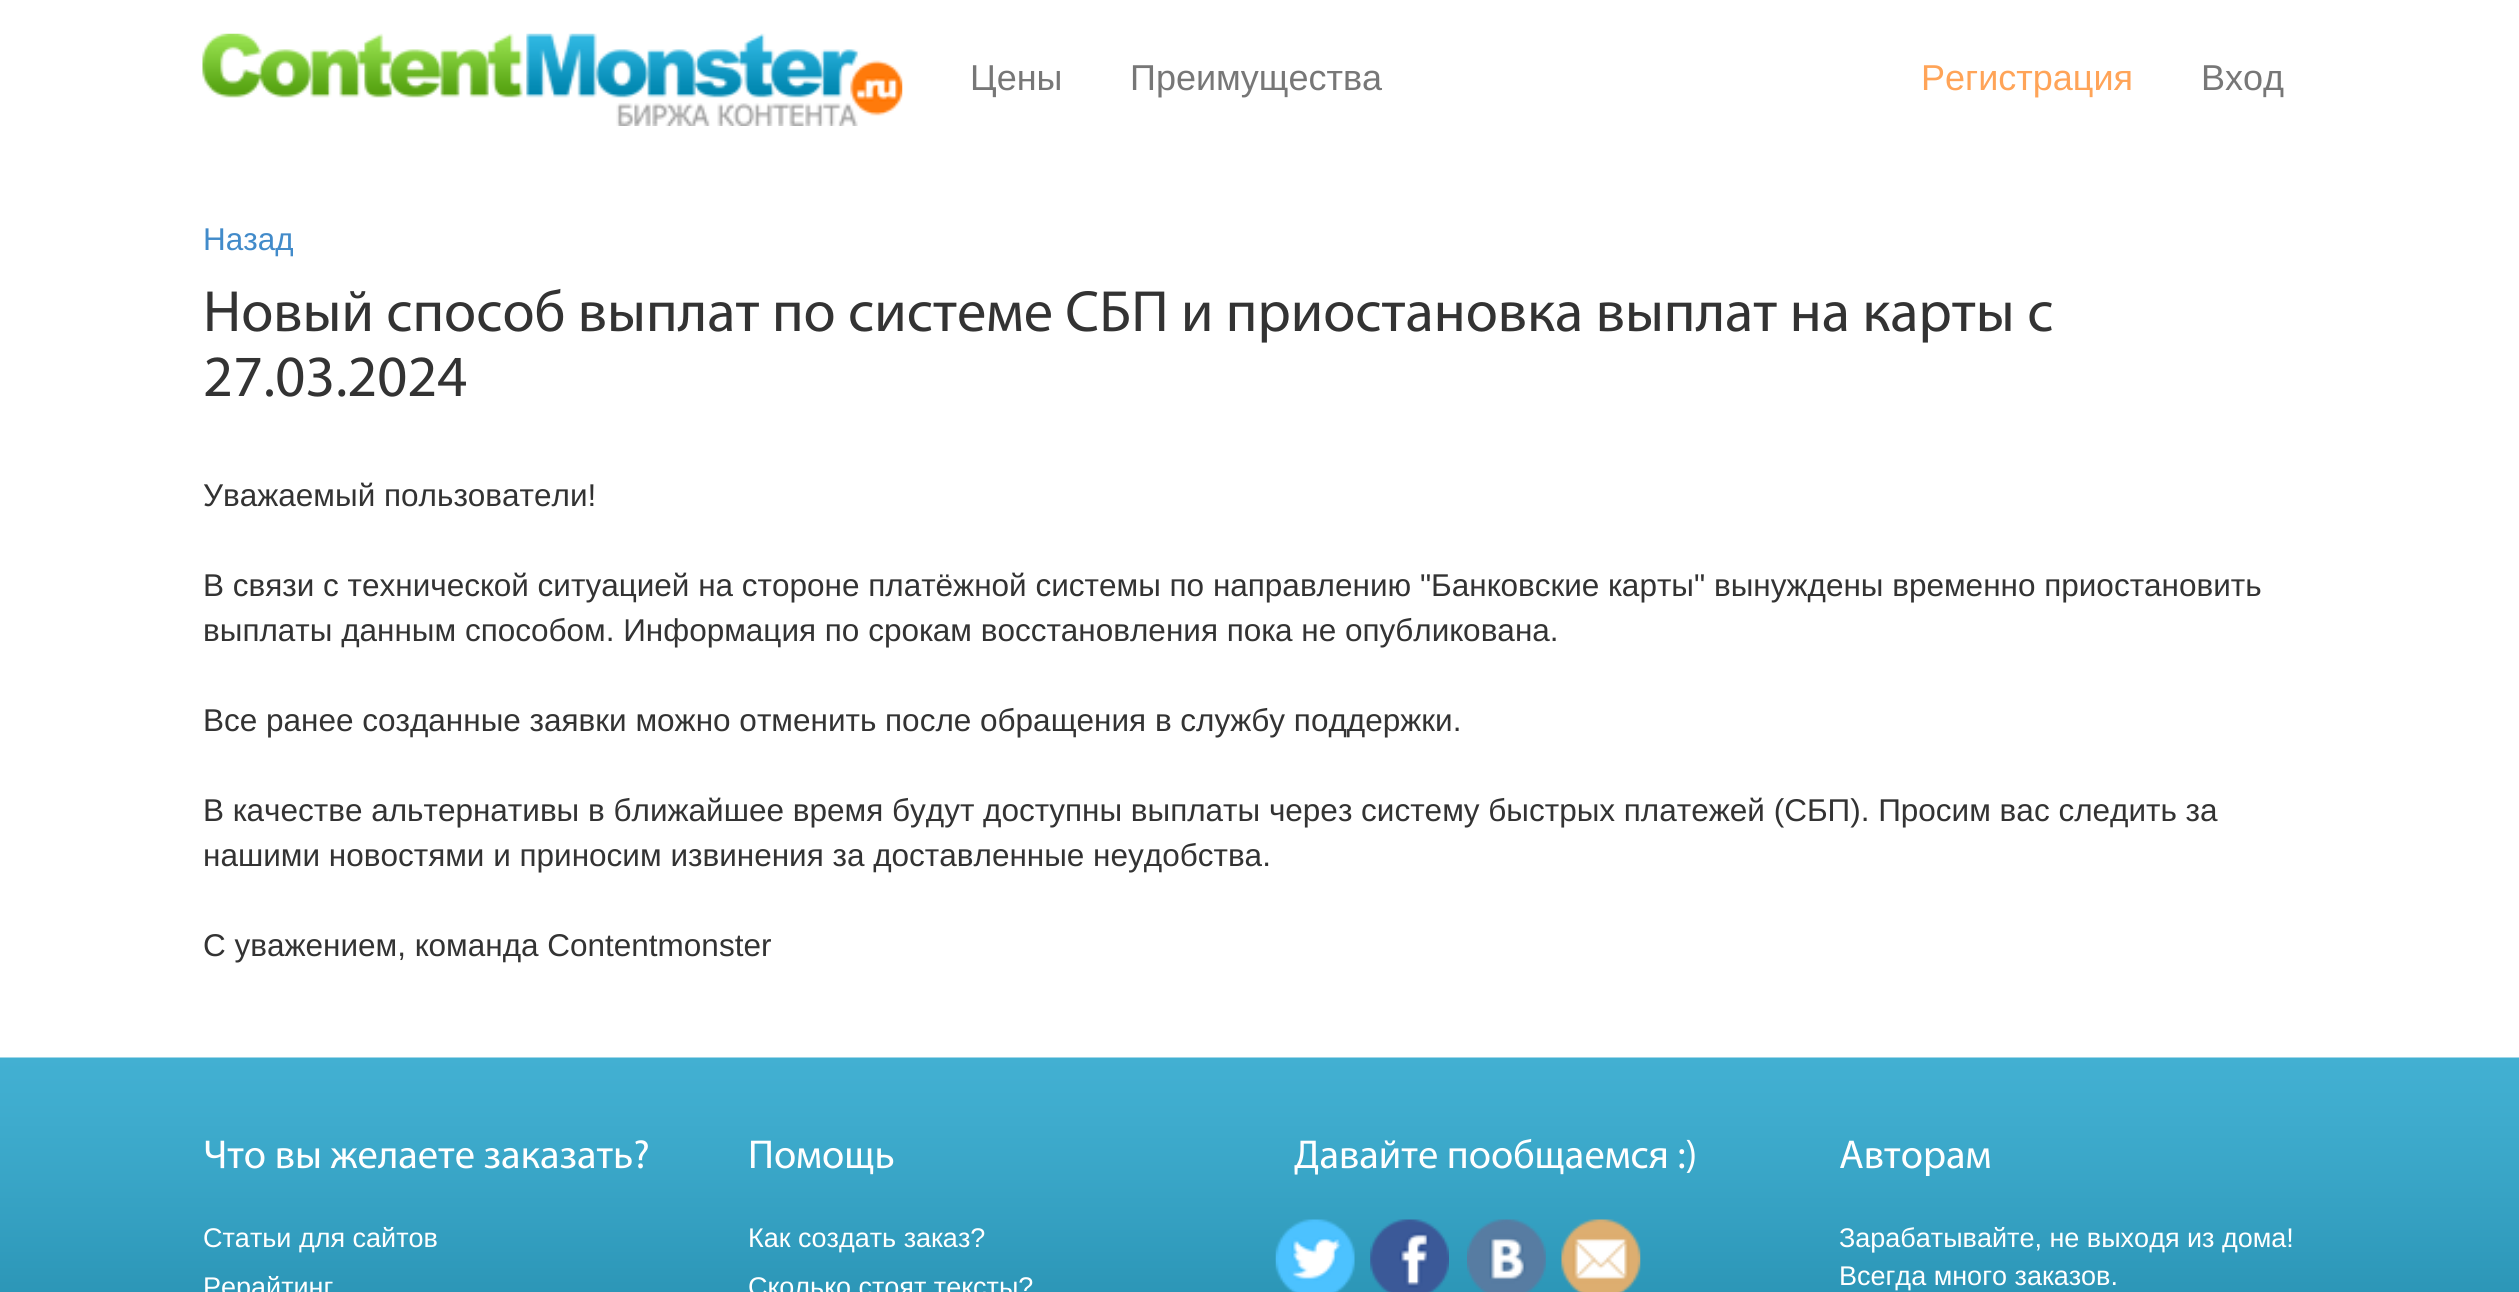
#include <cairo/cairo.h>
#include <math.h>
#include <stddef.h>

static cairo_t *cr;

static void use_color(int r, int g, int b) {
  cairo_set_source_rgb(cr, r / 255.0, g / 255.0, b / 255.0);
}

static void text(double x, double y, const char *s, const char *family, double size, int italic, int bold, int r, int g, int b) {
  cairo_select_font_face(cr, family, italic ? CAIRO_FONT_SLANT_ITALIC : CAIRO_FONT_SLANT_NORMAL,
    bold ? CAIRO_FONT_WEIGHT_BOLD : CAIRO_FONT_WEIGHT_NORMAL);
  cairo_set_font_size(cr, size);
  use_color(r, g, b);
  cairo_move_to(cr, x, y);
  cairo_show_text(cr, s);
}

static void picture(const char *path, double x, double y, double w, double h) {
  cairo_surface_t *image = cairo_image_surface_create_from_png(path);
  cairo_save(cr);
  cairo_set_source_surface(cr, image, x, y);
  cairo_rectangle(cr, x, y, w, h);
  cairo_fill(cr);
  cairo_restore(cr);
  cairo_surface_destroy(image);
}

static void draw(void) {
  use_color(255, 255, 255);
  cairo_paint(cr);
  picture("img_01.png", 202, 33, 701, 93);
  picture("img_02.png", 0, 1057, 2519, 235);
  picture("img_03.png", 1275, 1219, 80, 73);
  picture("img_04.png", 1370, 1219, 79, 73);
  picture("img_05.png", 1467, 1219, 79, 73);
  picture("img_06.png", 1561, 1219, 80, 73);
  text(970, 90, "Цены", "Liberation Sans", 36, 0, 0, 119, 119, 119);
  text(1130, 90, "Преимущества", "Liberation Sans", 36, 0, 0, 119, 119, 119);
  text(1921, 90, "Регистрация", "Liberation Sans", 36, 0, 0, 255, 164, 88);
  text(2201, 90, "Вход", "Liberation Sans", 36, 0, 0, 119, 119, 119);
  text(203, 250, "Назад", "Liberation Sans", 31.5, 0, 0, 66, 139, 202);
  text(203, 331, "Новый способ выплат по системе СБП и приостановка выплат на карты с", "Myriad", 58.5, 0, 0, 51, 51, 51);
  text(203, 396, "27.03.2024", "Myriad", 58.5, 0, 0, 51, 51, 51);
  text(203, 506, "Уважаемый пользователи!", "Liberation Sans", 31.5, 0, 0, 51, 51, 51);
  text(203, 596, "В связи с технической ситуацией на стороне платёжной системы по направлению \"Банковские карты\" вынуждены временно приостановить", "Liberation Sans", 31.5, 0, 0, 51, 51, 51);
  text(203, 641, "выплаты данным способом. Информация по срокам восстановления пока не опубликована.", "Liberation Sans", 31.5, 0, 0, 51, 51, 51);
  text(203, 731, "Все ранее созданные заявки можно отменить после обращения в службу поддержки.", "Liberation Sans", 31.5, 0, 0, 51, 51, 51);
  text(203, 821, "В качестве альтернативы в ближайшее время будут доступны выплаты через систему быстрых платежей (СБП). Просим вас следить за", "Liberation Sans", 31.5, 0, 0, 51, 51, 51);
  text(203, 866, "нашими новостями и приносим извинения за доставленные неудобства.", "Liberation Sans", 31.5, 0, 0, 51, 51, 51);
  text(203, 956, "С уважением, команда Contentmonster", "Liberation Sans", 31.5, 0, 0, 51, 51, 51);
  text(203, 1168, "Что вы желаете заказать?", "Myriad", 40.5, 0, 0, 255, 255, 255);
  text(203, 1247, "Статьи для сайтов", "Liberation Sans", 27, 0, 0, 255, 255, 255);
  text(203, 1296, "Рерайтинг", "Liberation Sans", 27, 0, 0, 255, 255, 255);
  text(748, 1168, "Помощь", "Myriad", 40.5, 0, 0, 255, 255, 255);
  text(748, 1247, "Как создать заказ?", "Liberation Sans", 27, 0, 0, 255, 255, 255);
  text(748, 1296, "Сколько стоят тексты?", "Liberation Sans", 27, 0, 0, 255, 255, 255);
  text(1294, 1168, "Давайте пообщаемся :)", "Myriad", 40.5, 0, 0, 255, 255, 255);
  text(1839, 1168, "Авторам", "Myriad", 40.5, 0, 0, 255, 255, 255);
  text(1839, 1247, "Зарабатывайте, не выходя из дома!", "Liberation Sans", 27, 0, 0, 255, 255, 255);
  text(1839, 1285, "Всегда много заказов.", "Liberation Sans", 27, 0, 0, 255, 255, 255);
}

int main(void) {
  cairo_surface_t *surface = cairo_image_surface_create(CAIRO_FORMAT_RGB24, 2519, 1292);
  cr = cairo_create(surface);
  cairo_font_options_t *options = cairo_font_options_create();
  cairo_font_options_set_hint_metrics(options, CAIRO_HINT_METRICS_OFF);
  cairo_font_options_set_hint_style(options, CAIRO_HINT_STYLE_NONE);
  cairo_set_font_options(cr, options);
  cairo_set_miter_limit(cr, 4);
  draw();
  cairo_surface_write_to_png(surface, "out.png");
  cairo_font_options_destroy(options);
  cairo_destroy(cr);
  cairo_surface_destroy(surface);
  return 0;
}
